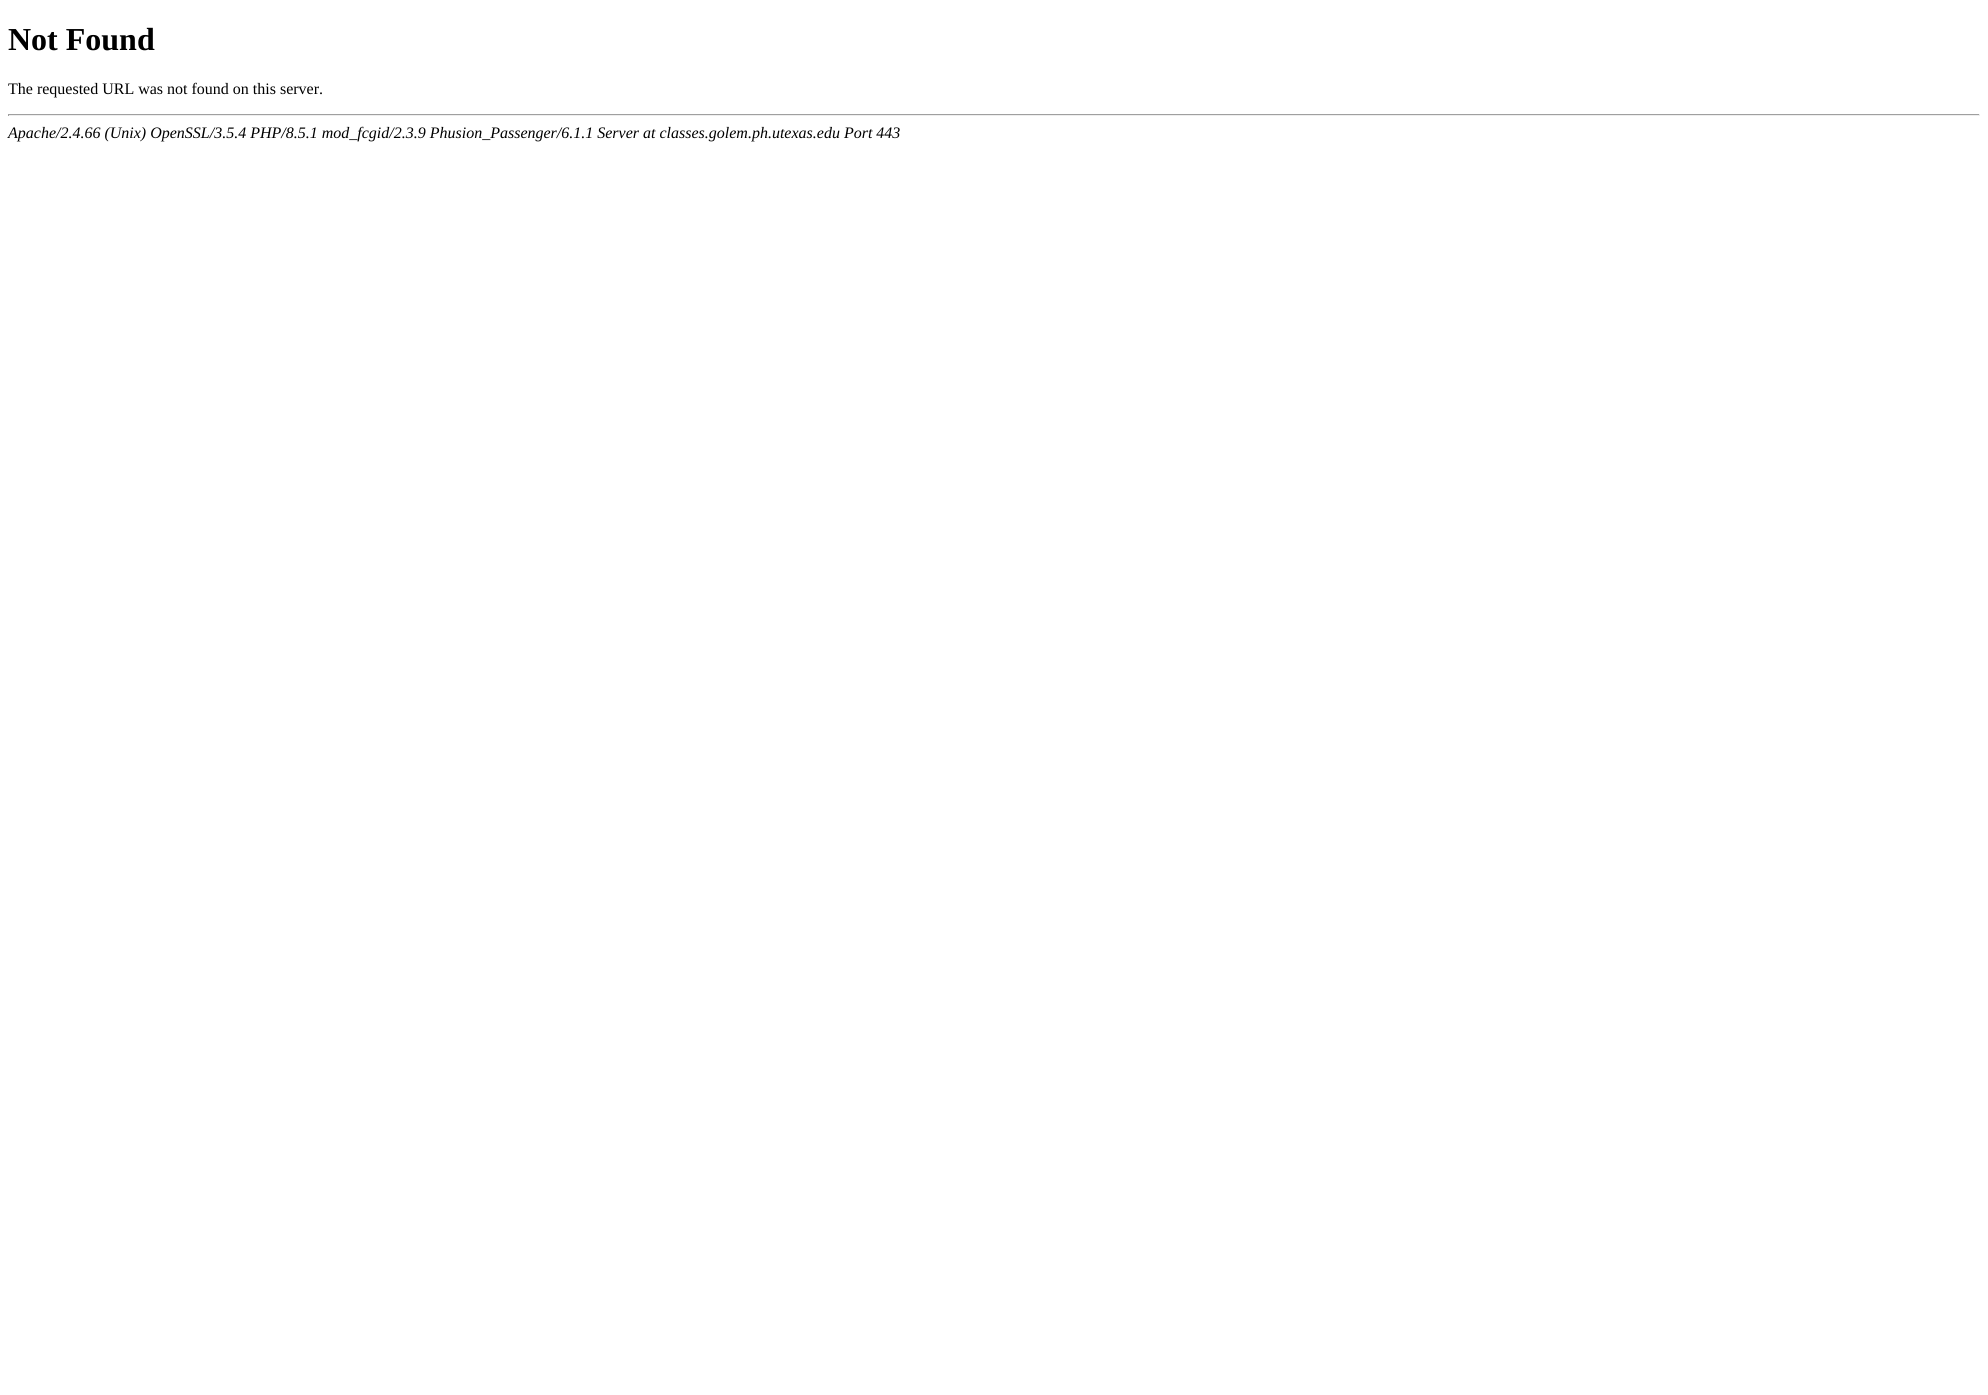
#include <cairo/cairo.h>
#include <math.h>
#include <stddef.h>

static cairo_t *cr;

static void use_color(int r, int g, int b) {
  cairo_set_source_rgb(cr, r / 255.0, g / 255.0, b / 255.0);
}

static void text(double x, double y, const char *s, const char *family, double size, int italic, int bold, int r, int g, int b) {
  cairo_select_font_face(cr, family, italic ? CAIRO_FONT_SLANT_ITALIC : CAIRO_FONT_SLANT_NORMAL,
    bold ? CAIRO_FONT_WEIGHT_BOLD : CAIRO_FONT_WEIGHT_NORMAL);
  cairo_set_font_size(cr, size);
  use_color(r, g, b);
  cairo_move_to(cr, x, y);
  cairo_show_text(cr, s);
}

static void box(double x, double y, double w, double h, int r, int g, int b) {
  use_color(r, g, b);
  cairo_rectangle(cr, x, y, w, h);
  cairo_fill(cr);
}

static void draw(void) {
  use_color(255, 255, 255);
  cairo_paint(cr);
  box(8, 114, 1972, 1, 159, 159, 159);
  box(1979, 114, 1, 2, 238, 238, 238);
  box(8, 115, 1972, 1, 238, 238, 238);
  box(8, 114, 1, 2, 159, 159, 159);
  text(8, 50, "Not Found", "Liberation Serif", 32, 0, 1, 0, 0, 0);
  text(8, 94, "The requested URL was not found on this server.", "Liberation Serif", 16, 0, 0, 0, 0, 0);
  text(8, 138, "Apache/2.4.66 (Unix) OpenSSL/3.5.4 PHP/8.5.1 mod_fcgid/2.3.9 Phusion_Passenger/6.1.1 Server at classes.golem.ph.utexas.edu Port 443", "Liberation Serif", 16, 1, 0, 0, 0, 0);
}

int main(void) {
  cairo_surface_t *surface = cairo_image_surface_create(CAIRO_FORMAT_RGB24, 1988, 1395);
  cr = cairo_create(surface);
  cairo_font_options_t *options = cairo_font_options_create();
  cairo_font_options_set_hint_metrics(options, CAIRO_HINT_METRICS_OFF);
  cairo_font_options_set_hint_style(options, CAIRO_HINT_STYLE_NONE);
  cairo_set_font_options(cr, options);
  cairo_set_miter_limit(cr, 4);
  draw();
  cairo_surface_write_to_png(surface, "out.png");
  cairo_font_options_destroy(options);
  cairo_destroy(cr);
  cairo_surface_destroy(surface);
  return 0;
}
